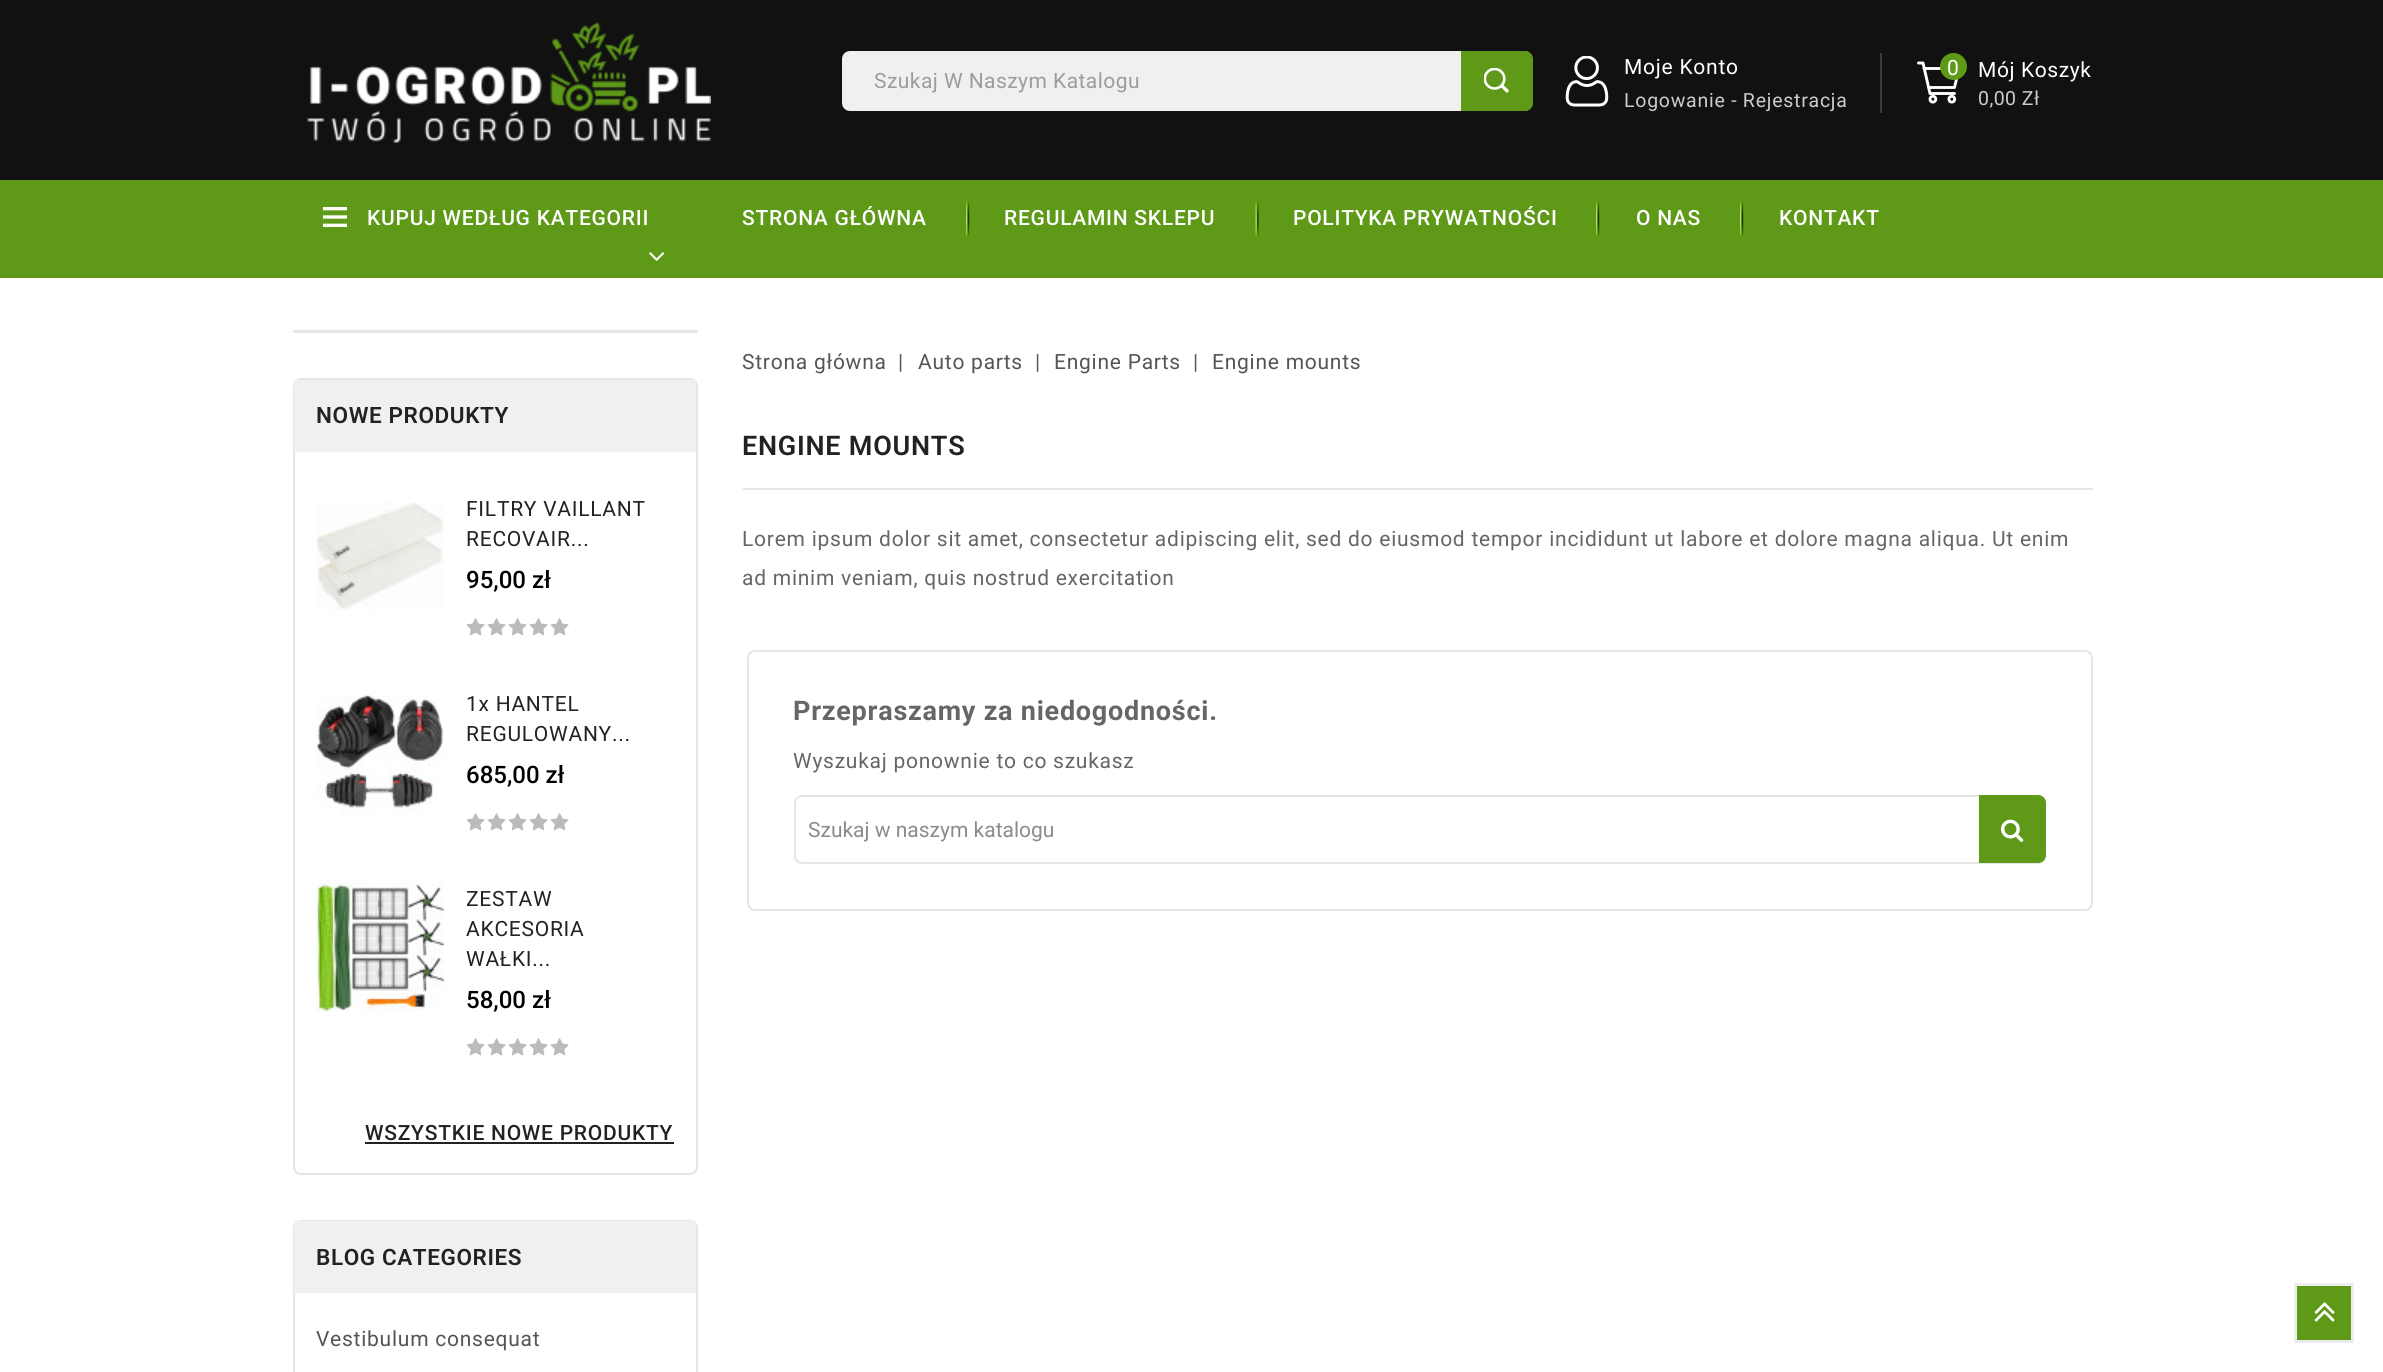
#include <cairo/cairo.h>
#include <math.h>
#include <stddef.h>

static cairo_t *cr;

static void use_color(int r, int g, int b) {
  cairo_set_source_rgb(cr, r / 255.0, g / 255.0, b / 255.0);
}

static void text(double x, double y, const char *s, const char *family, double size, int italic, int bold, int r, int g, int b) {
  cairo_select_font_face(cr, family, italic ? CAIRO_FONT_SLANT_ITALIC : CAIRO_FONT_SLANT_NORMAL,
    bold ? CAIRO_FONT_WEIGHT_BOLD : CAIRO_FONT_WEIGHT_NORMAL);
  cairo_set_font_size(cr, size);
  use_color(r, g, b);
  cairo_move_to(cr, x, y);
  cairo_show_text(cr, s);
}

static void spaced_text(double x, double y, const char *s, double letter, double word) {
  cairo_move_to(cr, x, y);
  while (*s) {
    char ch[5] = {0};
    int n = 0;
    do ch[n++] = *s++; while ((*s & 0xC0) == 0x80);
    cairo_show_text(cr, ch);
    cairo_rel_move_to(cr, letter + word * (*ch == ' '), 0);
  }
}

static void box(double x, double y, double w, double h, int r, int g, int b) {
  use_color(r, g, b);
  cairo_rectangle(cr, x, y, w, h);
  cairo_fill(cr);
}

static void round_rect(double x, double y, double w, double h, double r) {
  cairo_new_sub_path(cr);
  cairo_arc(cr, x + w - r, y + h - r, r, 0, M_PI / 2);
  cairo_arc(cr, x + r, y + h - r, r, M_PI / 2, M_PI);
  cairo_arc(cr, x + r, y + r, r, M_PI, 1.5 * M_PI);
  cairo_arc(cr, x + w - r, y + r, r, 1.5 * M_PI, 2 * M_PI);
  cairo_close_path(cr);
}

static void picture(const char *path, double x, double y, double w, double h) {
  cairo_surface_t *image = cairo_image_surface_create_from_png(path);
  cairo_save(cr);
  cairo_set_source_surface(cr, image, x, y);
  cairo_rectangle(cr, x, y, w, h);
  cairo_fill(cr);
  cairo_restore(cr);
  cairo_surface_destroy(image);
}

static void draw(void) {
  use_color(255, 255, 255);
  cairo_paint(cr);
  box(0, 0, 2383, 180, 17, 17, 17);
  picture("img_01.png", 307, 22, 404, 121);
  use_color(240, 240, 240);
  round_rect(842, 51, 690, 60, 8);
  cairo_fill(cr);
  use_color(94, 153, 24);
  cairo_new_path(cr);
  cairo_move_to(cr, 1461, 51);
  cairo_line_to(cr, 1525, 51);
  cairo_curve_to(cr, 1529.5, 51, 1533, 54.5, 1533, 59);
  cairo_line_to(cr, 1533, 103);
  cairo_curve_to(cr, 1533, 107.5, 1529.5, 111, 1525, 111);
  cairo_line_to(cr, 1461, 111);
  cairo_close_path(cr);
  cairo_fill(cr);
  picture("img_02.png", 1484, 68, 25, 25);
  picture("img_03.png", 1565, 56, 44, 51);
  box(1880, 53, 2, 60, 59, 59, 59);
  cairo_new_path(cr);
  cairo_move_to(cr, 1924, 68.5);
  cairo_line_to(cr, 1959, 68.5);
  cairo_line_to(cr, 1954.5, 87.5);
  cairo_line_to(cr, 1928.5, 87.5);
  cairo_move_to(cr, 1954.5, 93.5);
  cairo_line_to(cr, 1930, 93.5);
  cairo_line_to(cr, 1923, 63);
  cairo_line_to(cr, 1918.5, 63);
  use_color(255, 255, 255);
  cairo_set_line_width(cr, 2.9);
  cairo_set_line_cap(cr, CAIRO_LINE_CAP_ROUND);
  cairo_set_line_join(cr, CAIRO_LINE_JOIN_ROUND);
  cairo_stroke(cr);
  cairo_arc(cr, 1951.8, 99.2, 2.9, 0, 2 * M_PI);
  cairo_set_line_cap(cr, CAIRO_LINE_CAP_BUTT);
  cairo_set_line_join(cr, CAIRO_LINE_JOIN_MITER);
  cairo_stroke(cr);
  cairo_arc(cr, 1932.9, 99.2, 2.9, 0, 2 * M_PI);
  cairo_stroke(cr);
  use_color(94, 153, 24);
  cairo_arc(cr, 1953.5, 66.5, 13.5, 0, 2 * M_PI);
  cairo_fill(cr);
  box(0, 180, 2383, 98, 94, 153, 24);
  picture("img_04.png", 323, 207, 24, 20);
  picture("img_05.png", 649, 252, 16, 9);
  picture("img_06.png", 966, 201, 4, 35);
  picture("img_07.png", 1255, 201, 4, 35);
  picture("img_06.png", 1596, 201, 4, 35);
  picture("img_06.png", 1740, 201, 4, 35);
  use_color(229, 229, 229);
  round_rect(293, 330, 405, 3, 1.5);
  cairo_fill(cr);
  round_rect(294, 379, 403, 795, 7);
  cairo_set_line_width(cr, 2);
  cairo_stroke(cr);
  box(294, 380, 402, 72, 240, 240, 240);
  picture("img_08.png", 316, 502, 128, 108);
  picture("img_09.png", 467, 618, 18, 18);
  picture("img_10.png", 487, 618, 19, 18);
  picture("img_10.png", 508, 618, 19, 18);
  picture("img_10.png", 529, 618, 19, 18);
  picture("img_10.png", 550, 618, 19, 18);
  picture("img_11.png", 316, 695, 128, 121);
  picture("img_09.png", 467, 813, 18, 18);
  picture("img_10.png", 487, 813, 19, 18);
  picture("img_10.png", 508, 813, 19, 18);
  picture("img_10.png", 529, 813, 19, 18);
  picture("img_10.png", 550, 813, 19, 18);
  picture("img_12.png", 316, 879, 128, 133);
  picture("img_09.png", 467, 1038, 18, 18);
  picture("img_10.png", 487, 1038, 19, 18);
  picture("img_10.png", 508, 1038, 19, 18);
  picture("img_10.png", 529, 1038, 19, 18);
  picture("img_10.png", 550, 1038, 19, 18);
  box(365, 1142, 309, 2, 34, 34, 34);
  round_rect(294, 1221, 403, 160, 7);
  use_color(229, 229, 229);
  cairo_stroke(cr);
  box(294, 1221, 402, 72, 240, 240, 240);
  box(743, 488, 1350, 2, 229, 229, 229);
  round_rect(748, 651, 1344, 259, 7);
  cairo_stroke(cr);
  round_rect(795, 796, 1250, 67, 7);
  cairo_stroke(cr);
  use_color(94, 153, 24);
  cairo_new_path(cr);
  cairo_move_to(cr, 1979, 795);
  cairo_line_to(cr, 2038, 795);
  cairo_curve_to(cr, 2042.5, 795, 2046, 798.5, 2046, 803);
  cairo_line_to(cr, 2046, 855);
  cairo_curve_to(cr, 2046, 859.5, 2042.5, 863, 2038, 863);
  cairo_line_to(cr, 1979, 863);
  cairo_close_path(cr);
  cairo_fill(cr);
  picture("img_13.png", 2001, 819, 23, 23);
  cairo_rectangle(cr, 2295.5, 1284.5, 57, 57);
  cairo_fill_preserve(cr);
  use_color(237, 237, 237);
  cairo_set_line_width(cr, 3);
  cairo_stroke(cr);
  picture("img_14.png", 2314, 1302, 21, 20);
  cairo_select_font_face(cr, "Roboto", CAIRO_FONT_SLANT_NORMAL, CAIRO_FONT_WEIGHT_NORMAL);
  cairo_set_font_size(cr, 21);
  use_color(156, 156, 156);
  spaced_text(874, 88, "Szukaj W Naszym Katalogu", 0.45, 0);
  use_color(255, 255, 255);
  spaced_text(1624, 74, "Moje Konto", 0.75, 0);
  cairo_set_font_size(cr, 19.5);
  use_color(204, 204, 204);
  spaced_text(1624, 107, "Logowanie - Rejestracja", 0.75, 0);
  cairo_set_font_size(cr, 21);
  use_color(255, 255, 255);
  spaced_text(1947, 75, "0", 0.45, 0);
  spaced_text(1978, 77, "Mój Koszyk", 0.6, 0);
  cairo_set_font_size(cr, 19.5);
  use_color(204, 204, 204);
  spaced_text(1978, 105, "0,00 Zł", 0.45, 0);
  cairo_select_font_face(cr, "Roboto Medium", CAIRO_FONT_SLANT_NORMAL, CAIRO_FONT_WEIGHT_NORMAL);
  cairo_set_font_size(cr, 21);
  use_color(255, 255, 255);
  spaced_text(367, 225, "KUPUJ WEDŁUG KATEGORII", 0.75, 0);
  spaced_text(742, 225, "STRONA GŁÓWNA", 0.75, 0);
  spaced_text(1004, 225, "REGULAMIN SKLEPU", 0.75, 0);
  spaced_text(1293, 225, "POLITYKA PRYWATNOŚCI", 0.75, 0);
  spaced_text(1636, 225, "O NAS", 0.75, 0);
  spaced_text(1779, 225, "KONTAKT", 0.75, 0);
  cairo_select_font_face(cr, "Roboto SemiBold", CAIRO_FONT_SLANT_NORMAL, CAIRO_FONT_WEIGHT_NORMAL);
  cairo_set_font_size(cr, 22.5);
  use_color(34, 34, 34);
  spaced_text(316, 423, "NOWE PRODUKTY", 0.6, 0);
  cairo_select_font_face(cr, "Roboto", CAIRO_FONT_SLANT_NORMAL, CAIRO_FONT_WEIGHT_NORMAL);
  cairo_set_font_size(cr, 21);
  spaced_text(466, 516, "FILTRY VAILLANT", 0.75, 0);
  spaced_text(466, 546, "RECOVAIR...", 0.75, 0);
  text(466, 588, "95,00 zł", "Roboto Medium", 24, 0, 0, 0, 0, 0);
  cairo_select_font_face(cr, "Roboto", CAIRO_FONT_SLANT_NORMAL, CAIRO_FONT_WEIGHT_NORMAL);
  cairo_set_font_size(cr, 21);
  use_color(34, 34, 34);
  spaced_text(466, 711, "1x HANTEL", 0.75, 0);
  spaced_text(466, 741, "REGULOWANY...", 0.75, 0);
  text(466, 783, "685,00 zł", "Roboto Medium", 24, 0, 0, 0, 0, 0);
  cairo_save(cr);
  cairo_rectangle(cr, 467, 879, 207, 188);
  cairo_clip(cr);
  cairo_select_font_face(cr, "Roboto", CAIRO_FONT_SLANT_NORMAL, CAIRO_FONT_WEIGHT_NORMAL);
  cairo_set_font_size(cr, 21);
  use_color(34, 34, 34);
  spaced_text(466, 906, "ZESTAW", 0.75, 0);
  cairo_restore(cr);
  cairo_select_font_face(cr, "Roboto", CAIRO_FONT_SLANT_NORMAL, CAIRO_FONT_WEIGHT_NORMAL);
  cairo_set_font_size(cr, 21);
  use_color(34, 34, 34);
  spaced_text(466, 936, "AKCESORIA", 0.75, 0);
  spaced_text(466, 966, "WAŁKI...", 0.75, 0);
  text(466, 1008, "58,00 zł", "Roboto Medium", 24, 0, 0, 0, 0, 0);
  cairo_set_font_size(cr, 21);
  use_color(34, 34, 34);
  spaced_text(365, 1140, "WSZYSTKIE NOWE PRODUKTY", 0.75, 0);
  cairo_select_font_face(cr, "Roboto SemiBold", CAIRO_FONT_SLANT_NORMAL, CAIRO_FONT_WEIGHT_NORMAL);
  cairo_set_font_size(cr, 22.5);
  spaced_text(316, 1265, "BLOG CATEGORIES", 0.6, 0);
  cairo_select_font_face(cr, "Roboto", CAIRO_FONT_SLANT_NORMAL, CAIRO_FONT_WEIGHT_NORMAL);
  cairo_set_font_size(cr, 21);
  use_color(85, 85, 85);
  spaced_text(316, 1346, "Vestibulum consequat", 0.75, 0);
  spaced_text(742, 369, "Strona główna", 0.75, 0);
  spaced_text(898, 369, "|", 0.75, 0);
  spaced_text(918, 369, "Auto parts", 0.75, 0);
  spaced_text(1035, 369, "|", 0.75, 0);
  spaced_text(1054, 369, "Engine Parts", 0.75, 0);
  spaced_text(1193, 369, "|", 0.75, 0);
  spaced_text(1212, 369, "Engine mounts", 0.75, 0);
  cairo_select_font_face(cr, "Roboto SemiBold", CAIRO_FONT_SLANT_NORMAL, CAIRO_FONT_WEIGHT_NORMAL);
  cairo_set_font_size(cr, 27);
  use_color(34, 34, 34);
  spaced_text(742, 455, "ENGINE MOUNTS", 0.75, 0);
  cairo_select_font_face(cr, "Roboto", CAIRO_FONT_SLANT_NORMAL, CAIRO_FONT_WEIGHT_NORMAL);
  cairo_set_font_size(cr, 21);
  use_color(102, 102, 102);
  spaced_text(742, 546, "Lorem ipsum dolor sit amet, consectetur adipiscing elit, sed do eiusmod tempor incididunt ut labore et dolore magna aliqua. Ut enim", 0.75, 0);
  spaced_text(742, 585, "ad minim veniam, quis nostrud exercitation", 0.75, 0);
  cairo_select_font_face(cr, "Roboto", CAIRO_FONT_SLANT_NORMAL, CAIRO_FONT_WEIGHT_BOLD);
  cairo_set_font_size(cr, 27);
  spaced_text(793, 720, "Przepraszamy za niedogodności.", 0.75, 0);
  cairo_select_font_face(cr, "Roboto", CAIRO_FONT_SLANT_NORMAL, CAIRO_FONT_WEIGHT_NORMAL);
  cairo_set_font_size(cr, 21);
  spaced_text(793, 768, "Wyszukaj ponownie to co szukasz", 0.75, 0);
  text(808, 837, "Szukaj w naszym katalogu", "Roboto", 21, 0, 0, 139, 139, 139);
}

int main(void) {
  cairo_surface_t *surface = cairo_image_surface_create(CAIRO_FORMAT_RGB24, 2383, 1372);
  cr = cairo_create(surface);
  cairo_font_options_t *options = cairo_font_options_create();
  cairo_font_options_set_hint_metrics(options, CAIRO_HINT_METRICS_OFF);
  cairo_font_options_set_hint_style(options, CAIRO_HINT_STYLE_NONE);
  cairo_set_font_options(cr, options);
  cairo_set_miter_limit(cr, 4);
  draw();
  cairo_surface_write_to_png(surface, "out.png");
  cairo_font_options_destroy(options);
  cairo_destroy(cr);
  cairo_surface_destroy(surface);
  return 0;
}
